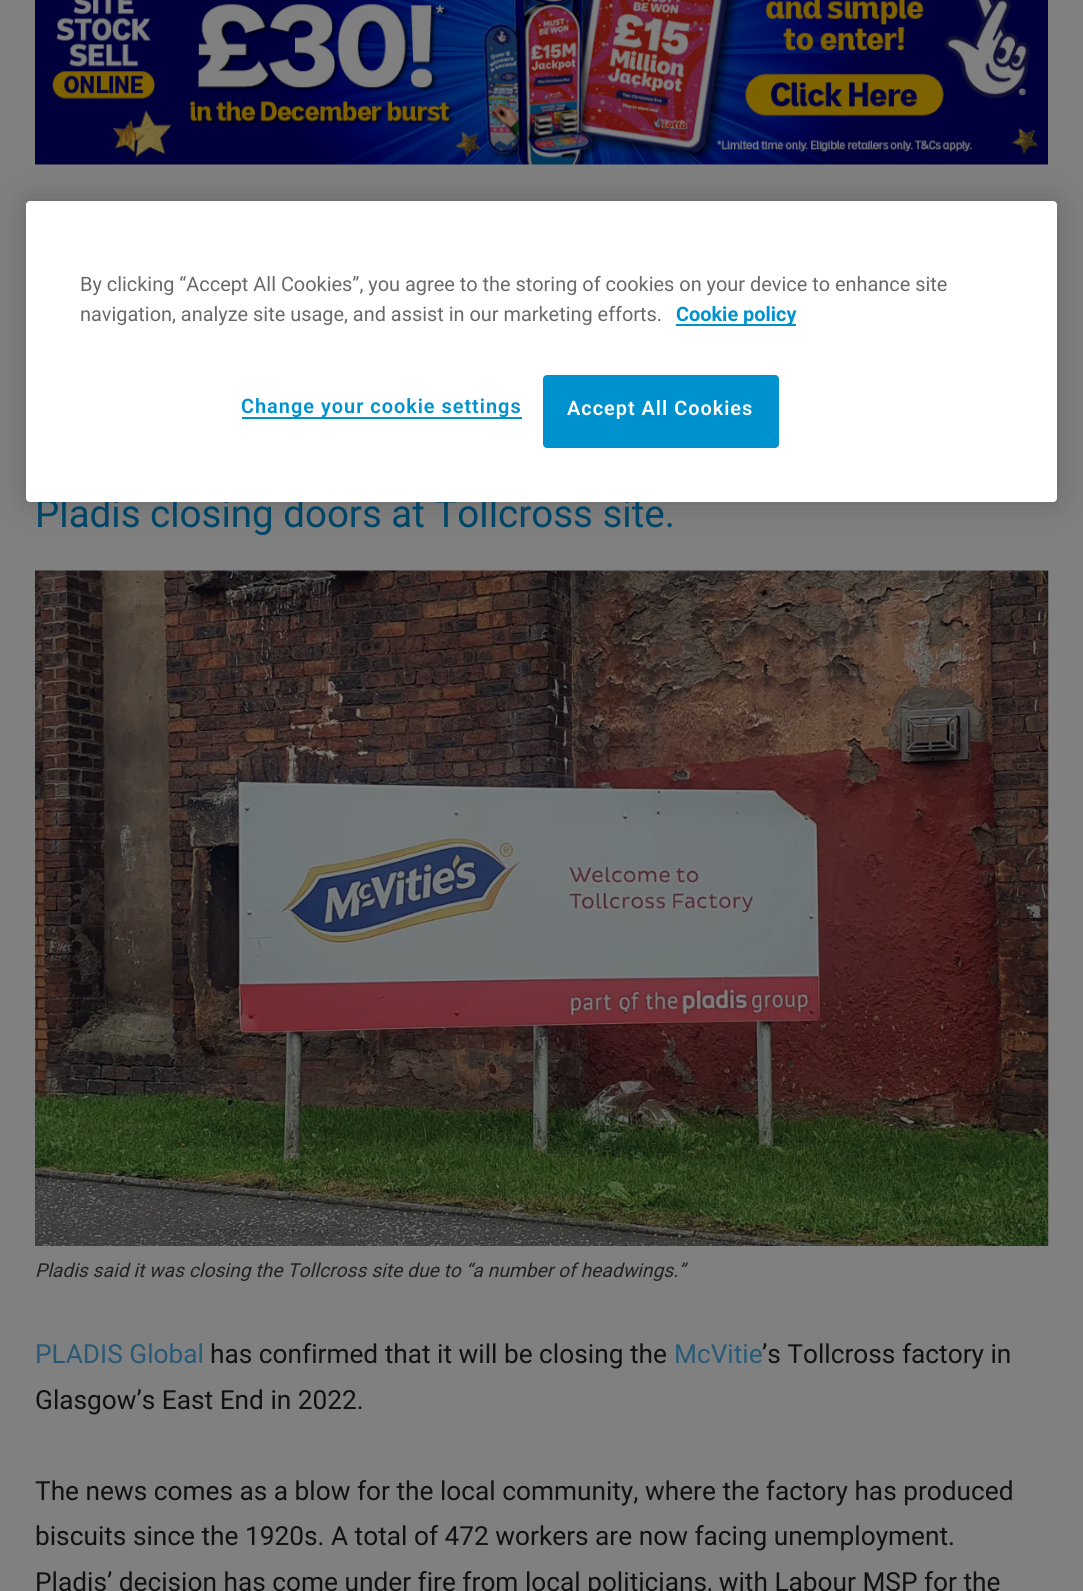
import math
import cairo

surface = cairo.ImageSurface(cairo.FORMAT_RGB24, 1083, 1591)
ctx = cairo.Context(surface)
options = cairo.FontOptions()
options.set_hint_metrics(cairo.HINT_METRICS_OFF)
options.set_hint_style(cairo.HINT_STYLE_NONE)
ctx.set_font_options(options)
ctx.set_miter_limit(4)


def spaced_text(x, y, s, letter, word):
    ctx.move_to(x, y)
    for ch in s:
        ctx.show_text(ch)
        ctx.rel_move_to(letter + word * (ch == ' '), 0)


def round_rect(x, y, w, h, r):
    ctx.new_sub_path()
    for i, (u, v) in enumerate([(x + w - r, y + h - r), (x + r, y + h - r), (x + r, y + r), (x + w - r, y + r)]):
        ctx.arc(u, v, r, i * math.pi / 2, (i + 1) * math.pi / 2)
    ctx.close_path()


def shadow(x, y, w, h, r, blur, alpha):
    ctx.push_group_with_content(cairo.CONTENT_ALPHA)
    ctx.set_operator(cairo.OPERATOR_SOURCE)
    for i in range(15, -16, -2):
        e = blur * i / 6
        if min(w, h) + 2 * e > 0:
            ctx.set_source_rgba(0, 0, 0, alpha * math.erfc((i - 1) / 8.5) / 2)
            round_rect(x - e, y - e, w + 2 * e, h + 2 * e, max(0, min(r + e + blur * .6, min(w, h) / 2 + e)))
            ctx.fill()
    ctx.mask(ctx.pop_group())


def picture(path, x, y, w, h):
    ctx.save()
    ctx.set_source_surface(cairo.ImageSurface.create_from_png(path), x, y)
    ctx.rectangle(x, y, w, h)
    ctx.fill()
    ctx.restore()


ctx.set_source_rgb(0.502, 0.502, 0.502)
ctx.paint()
picture("img1.png", 35, 0, 1013, 165)
ctx.set_source_rgb(0, 0, 0)
shadow(26, 201, 1031, 301, 4, 16, 0.2)
ctx.select_font_face("Roboto")
ctx.set_font_size(38.5)
ctx.set_source_rgb(0, 0.271, 0.4)
ctx.move_to(35, 527)
ctx.show_text("Pladis closing doors at Tollcross site.")
ctx.set_source_rgb(1, 1, 1)
round_rect(26, 201, 1031, 301, 4)
ctx.fill()
ctx.set_font_size(19.9)
ctx.set_source_rgb(0.412, 0.412, 0.412)
ctx.move_to(80, 291)
ctx.show_text("By clicking “Accept All Cookies”, you agree to the storing of cookies on your device to enhance site")
ctx.move_to(80, 321)
ctx.show_text("navigation, analyze site usage, and assist in our marketing efforts.")
ctx.set_source_rgb(0, 0.573, 0.812)
ctx.rectangle(676, 324, 120, 2)
ctx.fill()
ctx.select_font_face("Roboto", cairo.FONT_SLANT_NORMAL, cairo.FONT_WEIGHT_BOLD)
ctx.move_to(676, 321)
ctx.show_text("Cookie policy")
ctx.rectangle(242, 417, 280, 2)
ctx.fill()
ctx.select_font_face("Roboto SemiBold")
spaced_text(241, 413, "Change your cookie settings", 1, 0)
round_rect(544, 376, 234, 71, 3)
ctx.fill_preserve()
ctx.stroke()
ctx.set_source_rgb(1, 1, 1)
spaced_text(567, 415, "Accept All Cookies", 1, 0)
picture("img2.png", 35, 570, 1014, 676)
ctx.select_font_face("Roboto", cairo.FONT_SLANT_ITALIC)
ctx.set_font_size(19.25)
ctx.set_source_rgb(0.133, 0.133, 0.133)
ctx.move_to(35, 1277)
ctx.show_text("Pladis said it was closing the Tollcross site due to “a number of headwings.”")
ctx.select_font_face("Roboto")
ctx.set_font_size(26.25)
ctx.set_source_rgb(0.153, 0.349, 0.463)
ctx.move_to(35, 1363)
ctx.show_text("PLADIS Global")
ctx.set_source_rgb(0.067, 0.067, 0.067)
ctx.move_to(210, 1363)
ctx.show_text("has confirmed that it will be closing the")
ctx.set_source_rgb(0.153, 0.349, 0.463)
ctx.move_to(674, 1363)
ctx.show_text("McVitie")
ctx.set_source_rgb(0.067, 0.067, 0.067)
ctx.move_to(762, 1363)
ctx.show_text("’s Tollcross factory in")
ctx.move_to(35, 1409)
ctx.show_text("Glasgow’s East End in 2022.")
ctx.move_to(35, 1500)
ctx.show_text("The news comes as a blow for the local community, where the factory has produced")
ctx.move_to(35, 1545)
ctx.show_text("biscuits since the 1920s. A total of 472 workers are now facing unemployment.")
ctx.move_to(35, 1591)
ctx.show_text("Pladis’ decision has come under fire from local politicians, with Labour MSP for the")
surface.write_to_png("page.png")
